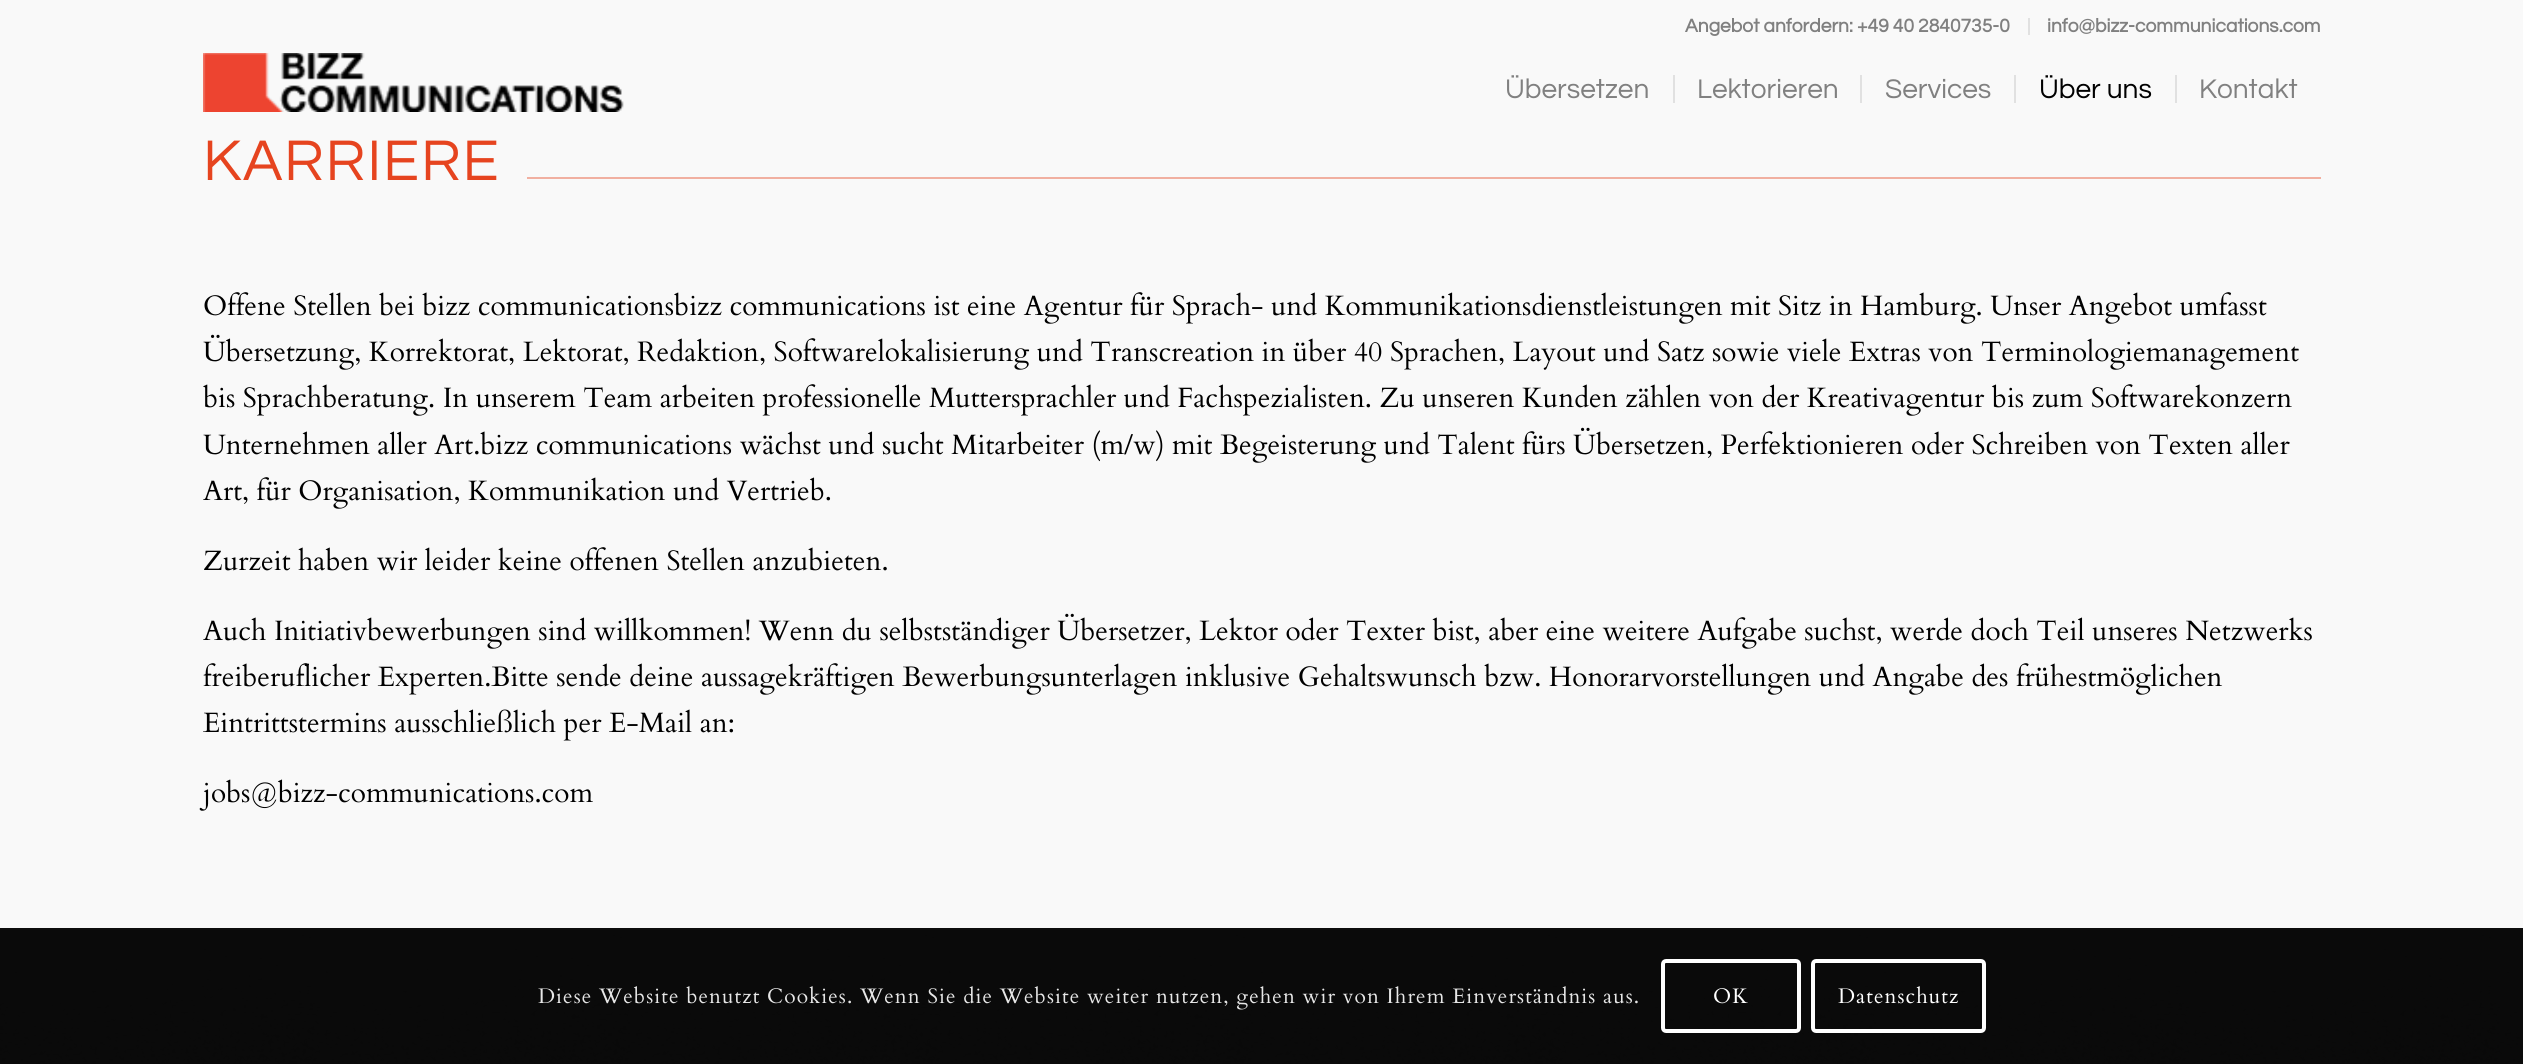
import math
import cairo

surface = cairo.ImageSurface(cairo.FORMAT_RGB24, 2523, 1064)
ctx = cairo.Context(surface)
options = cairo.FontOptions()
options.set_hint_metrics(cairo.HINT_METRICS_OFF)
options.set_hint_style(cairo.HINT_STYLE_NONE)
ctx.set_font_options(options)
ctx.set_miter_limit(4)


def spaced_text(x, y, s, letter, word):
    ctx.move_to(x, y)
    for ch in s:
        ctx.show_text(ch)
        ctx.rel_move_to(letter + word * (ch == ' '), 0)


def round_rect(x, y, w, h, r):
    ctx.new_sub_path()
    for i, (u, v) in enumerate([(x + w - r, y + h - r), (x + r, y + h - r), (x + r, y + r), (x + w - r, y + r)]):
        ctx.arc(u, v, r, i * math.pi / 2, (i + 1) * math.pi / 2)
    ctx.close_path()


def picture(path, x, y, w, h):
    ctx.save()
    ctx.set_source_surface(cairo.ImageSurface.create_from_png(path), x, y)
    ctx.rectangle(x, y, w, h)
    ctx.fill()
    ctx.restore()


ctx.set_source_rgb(0.973, 0.973, 0.973)
ctx.paint()
ctx.set_source_rgb(0.882, 0.882, 0.882)
ctx.rectangle(2028, 18, 2, 17)
ctx.fill()
ctx.select_font_face("Questrial", cairo.FONT_SLANT_NORMAL, cairo.FONT_WEIGHT_BOLD)
ctx.set_font_size(19.25)
ctx.set_source_rgb(0.502, 0.502, 0.502)
ctx.move_to(1685, 32)
ctx.show_text("Angebot anfordern: +49 40 2840735-0")
ctx.move_to(2047, 32)
ctx.show_text("info@bizz-communications.com")
picture("img1.png", 203, 53, 421, 59)
ctx.select_font_face("Questrial")
ctx.set_font_size(28)
ctx.move_to(1505, 98)
ctx.show_text("Übersetzen")
ctx.move_to(1697, 98)
ctx.show_text("Lektorieren")
ctx.set_source_rgb(0.882, 0.882, 0.882)
ctx.rectangle(1673, 75, 2, 28)
ctx.fill()
ctx.set_source_rgb(0.502, 0.502, 0.502)
ctx.move_to(1885, 98)
ctx.show_text("Services")
ctx.set_source_rgb(0.882, 0.882, 0.882)
ctx.rectangle(1860, 75, 2, 28)
ctx.fill()
ctx.set_source_rgb(0, 0, 0)
ctx.move_to(2039, 98)
ctx.show_text("Über uns")
ctx.set_source_rgb(0.882, 0.882, 0.882)
ctx.rectangle(2014, 75, 2, 28)
ctx.fill()
ctx.set_source_rgb(0.502, 0.502, 0.502)
ctx.move_to(2199, 98)
ctx.show_text("Kontakt")
ctx.set_source_rgb(0.882, 0.882, 0.882)
ctx.rectangle(2175, 75, 2, 28)
ctx.fill()
ctx.set_font_size(59.5)
ctx.set_source_rgb(0.902, 0.267, 0.122)
spaced_text(203, 180, "KARRIERE", 1.75, 0)
ctx.set_source_rgb(0.945, 0.69, 0.631)
ctx.rectangle(527, 177, 1794, 2)
ctx.fill()
ctx.select_font_face("Cardo")
ctx.set_font_size(28)
ctx.set_source_rgb(0, 0, 0)
ctx.move_to(203, 315)
ctx.show_text("Offene Stellen bei bizz communicationsbizz communications ist eine Agentur für Sprach- und Kommunikationsdienstleistungen mit Sitz in Hamburg. Unser Angebot umfasst")
ctx.move_to(203, 361)
ctx.show_text("Übersetzung, Korrektorat, Lektorat, Redaktion, Softwarelokalisierung und Transcreation in über 40 Sprachen, Layout und Satz sowie viele Extras von Terminologiemanagement")
ctx.move_to(203, 407)
ctx.show_text("bis Sprachberatung. In unserem Team arbeiten professionelle Muttersprachler und Fachspezialisten. Zu unseren Kunden zählen von der Kreativagentur bis zum Softwarekonzern")
ctx.move_to(203, 454)
ctx.show_text("Unternehmen aller Art.bizz communications wächst und sucht Mitarbeiter (m/w) mit Begeisterung und Talent fürs Übersetzen, Perfektionieren oder Schreiben von Texten aller")
ctx.move_to(203, 500)
ctx.show_text("Art, für Organisation, Kommunikation und Vertrieb.")
ctx.move_to(203, 570)
ctx.show_text("Zurzeit haben wir leider keine offenen Stellen anzubieten.")
ctx.move_to(203, 640)
ctx.show_text("Auch Initiativbewerbungen sind willkommen! Wenn du selbstständiger Übersetzer, Lektor oder Texter bist, aber eine weitere Aufgabe suchst, werde doch Teil unseres Netzwerks")
ctx.move_to(203, 686)
ctx.show_text("freiberuflicher Experten.Bitte sende deine aussagekräftigen Bewerbungsunterlagen inklusive Gehaltswunsch bzw. Honorarvorstellungen und Angabe des frühestmöglichen")
ctx.move_to(203, 732)
ctx.show_text("Eintrittstermins ausschließlich per E-Mail an:")
ctx.move_to(203, 802)
ctx.show_text("jobs@bizz-communications.com")
ctx.set_source_rgb(0.031, 0.031, 0.031)
ctx.rectangle(0, 930, 2523, 134)
ctx.fill()
picture("img2.png", 0, 930, 2523, 134)
ctx.set_source_rgb(0.051, 0.051, 0.051)
ctx.rectangle(0, 928, 2523, 2)
ctx.fill()
ctx.set_font_size(21)
ctx.set_source_rgb(0.906, 0.906, 0.906)
spaced_text(538, 1003, "Diese Website benutzt Cookies. Wenn Sie die Website weiter nutzen, gehen wir von Ihrem Einverständnis aus.", 1.05, 0)
round_rect(1663, 961, 136, 70, 3)
ctx.set_source_rgb(1, 1, 1)
ctx.set_line_width(4)
ctx.stroke()
spaced_text(1713, 1003, "OK", 1.05, 0)
round_rect(1813, 961, 171, 70, 3)
ctx.stroke()
spaced_text(1838, 1003, "Datenschutz", 1.05, 0)
surface.write_to_png("page.png")
